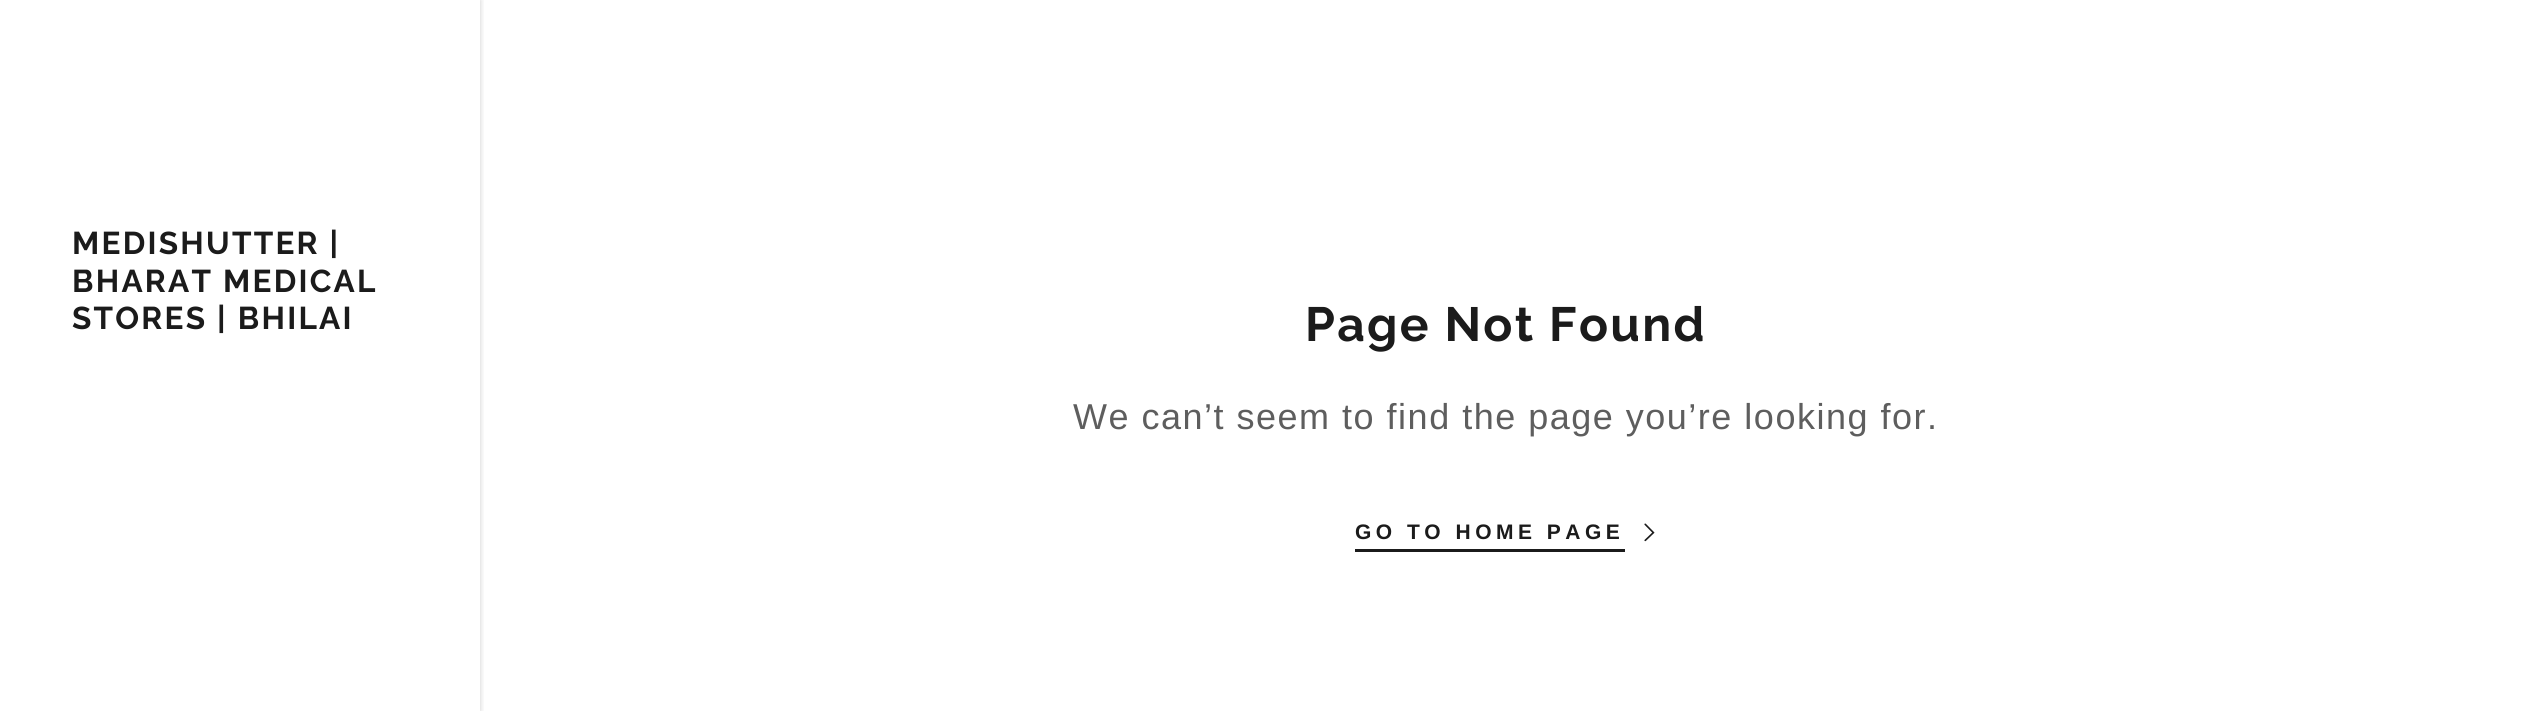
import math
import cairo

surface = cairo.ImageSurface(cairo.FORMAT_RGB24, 2531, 711)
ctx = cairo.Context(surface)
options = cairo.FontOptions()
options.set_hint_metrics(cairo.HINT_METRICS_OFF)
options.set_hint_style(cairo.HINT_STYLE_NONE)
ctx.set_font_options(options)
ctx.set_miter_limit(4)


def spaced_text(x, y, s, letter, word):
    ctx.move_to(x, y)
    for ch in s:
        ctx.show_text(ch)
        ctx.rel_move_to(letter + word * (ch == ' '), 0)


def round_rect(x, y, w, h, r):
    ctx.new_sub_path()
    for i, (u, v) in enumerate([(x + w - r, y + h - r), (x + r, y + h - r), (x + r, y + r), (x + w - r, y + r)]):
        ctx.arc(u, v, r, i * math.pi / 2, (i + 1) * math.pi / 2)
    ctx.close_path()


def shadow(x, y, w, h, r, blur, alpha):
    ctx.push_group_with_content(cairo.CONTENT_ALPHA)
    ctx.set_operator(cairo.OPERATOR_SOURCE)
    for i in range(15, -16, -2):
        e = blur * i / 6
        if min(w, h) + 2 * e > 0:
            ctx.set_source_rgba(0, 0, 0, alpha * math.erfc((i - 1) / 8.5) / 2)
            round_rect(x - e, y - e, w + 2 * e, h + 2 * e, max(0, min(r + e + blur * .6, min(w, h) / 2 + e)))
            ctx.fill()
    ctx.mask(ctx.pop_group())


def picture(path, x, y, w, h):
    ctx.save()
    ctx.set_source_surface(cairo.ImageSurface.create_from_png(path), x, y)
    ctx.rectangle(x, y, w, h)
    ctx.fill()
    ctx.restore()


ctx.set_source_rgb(1, 1, 1)
ctx.paint()
ctx.save()
ctx.rectangle(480, 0, 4, 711)
ctx.clip()
ctx.set_source_rgb(0, 0, 0)
shadow(0, 0, 480, 711, 0, 3, 0.2)
ctx.restore()
ctx.select_font_face("Raleway", cairo.FONT_SLANT_NORMAL, cairo.FONT_WEIGHT_BOLD)
ctx.set_font_size(31.5)
ctx.set_source_rgb(0.106, 0.106, 0.106)
spaced_text(72, 254, "MEDISHUTTER |", 2.25, 0)
spaced_text(72, 292, "BHARAT MEDICAL", 2.25, 0)
spaced_text(72, 329, "STORES | BHILAI", 2.25, 0)
ctx.set_font_size(48)
spaced_text(1305, 341, "Page Not Found", 2.25, 0)
ctx.select_font_face("Liberation Sans")
ctx.set_font_size(36)
ctx.set_source_rgb(0.369, 0.369, 0.369)
spaced_text(1073, 429, "We can’t seem to find the page you’re looking for.", 1.5, 0)
ctx.set_source_rgb(0.106, 0.106, 0.106)
ctx.rectangle(1355, 549, 270, 3)
ctx.fill()
ctx.select_font_face("Liberation Sans", cairo.FONT_SLANT_NORMAL, cairo.FONT_WEIGHT_BOLD)
ctx.set_font_size(21)
spaced_text(1355, 539, "GO TO HOME PAGE", 4.5, 0)
picture("img1.png", 1644, 523, 11, 19)
surface.write_to_png("page.png")
